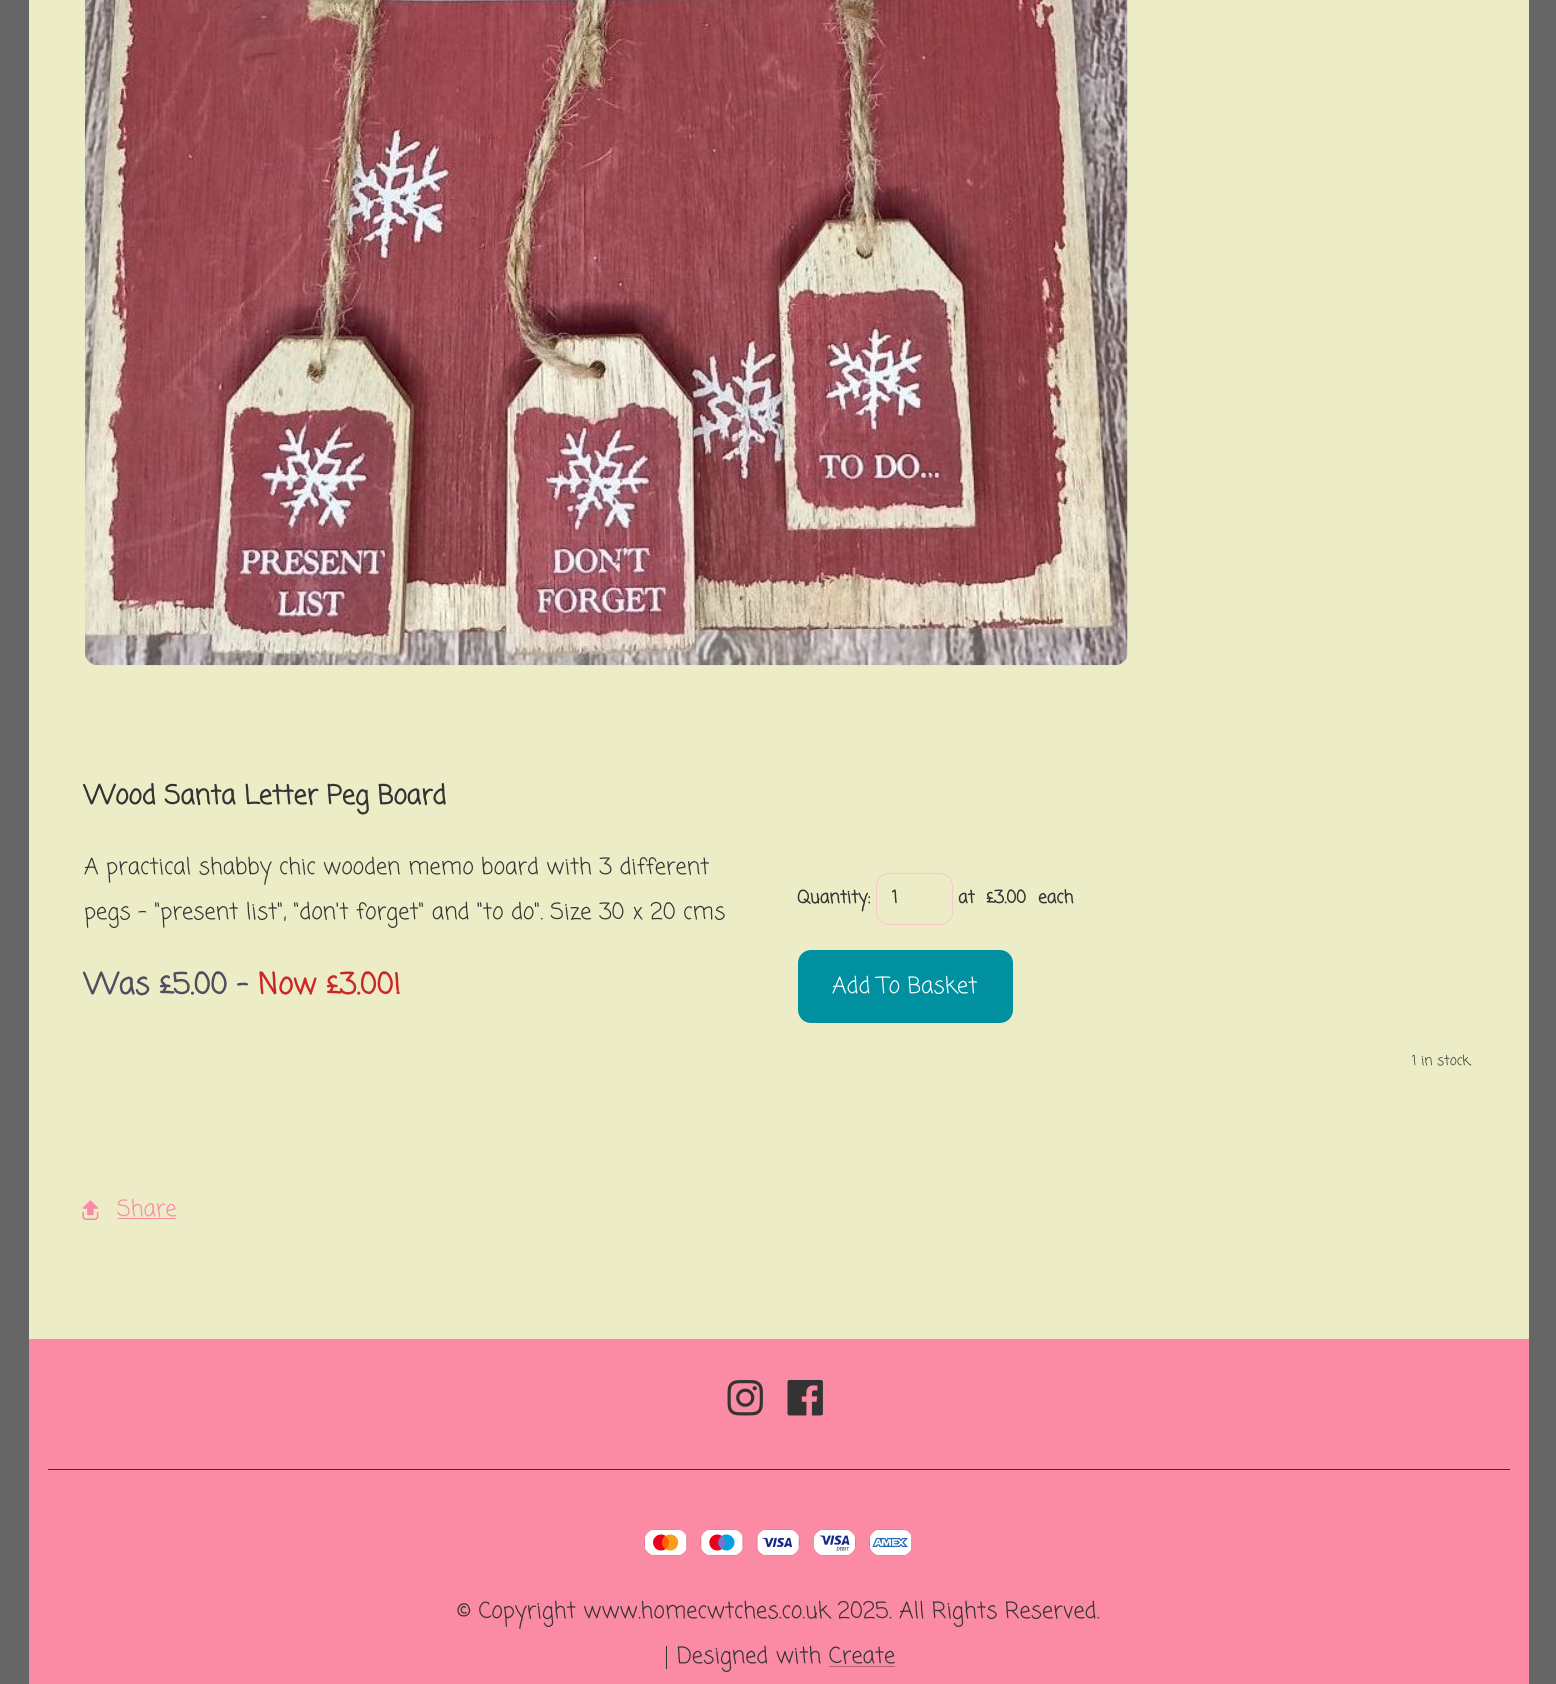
import math
import cairo

surface = cairo.ImageSurface(cairo.FORMAT_RGB24, 1556, 1684)
ctx = cairo.Context(surface)
options = cairo.FontOptions()
options.set_hint_metrics(cairo.HINT_METRICS_OFF)
options.set_hint_style(cairo.HINT_STYLE_NONE)
ctx.set_font_options(options)
ctx.set_miter_limit(4)


def round_rect(x, y, w, h, r):
    ctx.new_sub_path()
    for i, (u, v) in enumerate([(x + w - r, y + h - r), (x + r, y + h - r), (x + r, y + r), (x + w - r, y + r)]):
        ctx.arc(u, v, r, i * math.pi / 2, (i + 1) * math.pi / 2)
    ctx.close_path()


def picture(path, x, y, w, h):
    ctx.save()
    ctx.set_source_surface(cairo.ImageSurface.create_from_png(path), x, y)
    ctx.rectangle(x, y, w, h)
    ctx.fill()
    ctx.restore()


ctx.set_source_rgb(0.4, 0.4, 0.4)
ctx.paint()
ctx.set_source_rgb(0.925, 0.929, 0.78)
ctx.rectangle(29, 0, 1500, 1339)
ctx.fill()
picture("img1.png", 85, 0, 1043, 666)
ctx.select_font_face("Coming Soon", cairo.FONT_SLANT_NORMAL, cairo.FONT_WEIGHT_BOLD)
ctx.set_font_size(26.25)
ctx.set_source_rgb(0.2, 0.2, 0.2)
ctx.move_to(84, 804)
ctx.show_text("Wood Santa Letter Peg Board")
ctx.select_font_face("Coming Soon")
ctx.set_font_size(22.5)
ctx.move_to(84, 874)
ctx.show_text("A practical shabby chic wooden memo board with 3 different")
ctx.move_to(84, 919)
ctx.show_text("pegs - \"present list\", \"don't forget\" and \"to do\". Size 30 x 20 cms")
ctx.select_font_face("Coming Soon", cairo.FONT_SLANT_NORMAL, cairo.FONT_WEIGHT_BOLD)
ctx.set_font_size(29.25)
ctx.set_source_rgb(0.302, 0.31, 0.373)
ctx.move_to(84, 994)
ctx.show_text("Was £5.00 -")
ctx.set_source_rgb(0.8, 0.149, 0.149)
ctx.move_to(258, 994)
ctx.show_text("Now £3.00!")
ctx.set_font_size(17.5)
ctx.set_source_rgb(0.2, 0.2, 0.2)
ctx.move_to(797, 903)
ctx.show_text("Quantity:")
round_rect(876.5, 873.5, 76, 51, 12.5)
ctx.set_source_rgb(0.992, 0.773, 0.824)
ctx.set_line_width(1)
ctx.stroke()
ctx.set_source_rgb(0.2, 0.2, 0.2)
ctx.move_to(892, 903)
ctx.show_text("1")
ctx.move_to(958, 903)
ctx.show_text("at")
ctx.move_to(986, 903)
ctx.show_text("£3.00")
ctx.move_to(1038, 903)
ctx.show_text("each")
ctx.set_source_rgb(0, 0.565, 0.627)
round_rect(799.5, 951.5, 212, 70, 11.5)
ctx.fill_preserve()
ctx.set_line_width(3)
ctx.stroke()
ctx.select_font_face("Coming Soon")
ctx.set_font_size(22.5)
ctx.set_source_rgb(1, 1, 1)
ctx.move_to(832, 993)
ctx.show_text("Add To Basket")
ctx.set_font_size(13.75)
ctx.set_source_rgb(0.2, 0.2, 0.2)
ctx.move_to(1412, 1065)
ctx.show_text("1 in stock.")
picture("img2.png", 82, 1200, 17, 21)
ctx.set_font_size(22.5)
ctx.set_source_rgb(0.984, 0.541, 0.643)
ctx.move_to(117, 1216)
ctx.show_text("Share")
ctx.rectangle(118, 1218, 58, 1)
ctx.fill()
ctx.rectangle(29, 1339, 1500, 345)
ctx.fill()
picture("img3.png", 727, 1380, 36, 36)
picture("img4.png", 787, 1380, 36, 36)
ctx.set_source_rgb(0.2, 0.2, 0.2)
ctx.rectangle(48, 1469, 1462, 1)
ctx.fill()
picture("img5.png", 644, 1529, 44, 27)
picture("img6.png", 700, 1529, 44, 27)
picture("img7.png", 756, 1529, 44, 27)
picture("img8.png", 813, 1529, 43, 27)
picture("img9.png", 869, 1529, 44, 27)
ctx.move_to(457, 1618)
ctx.show_text("© Copyright www.homecwtches.co.uk 2025. All Rights Reserved.")
ctx.rectangle(666, 1646, 1, 23)
ctx.fill()
ctx.move_to(677, 1663)
ctx.show_text("Designed with Create")
ctx.set_source_rgb(0.671, 0.404, 0.467)
ctx.rectangle(829, 1666, 66, 1)
ctx.fill()
surface.write_to_png("page.png")
